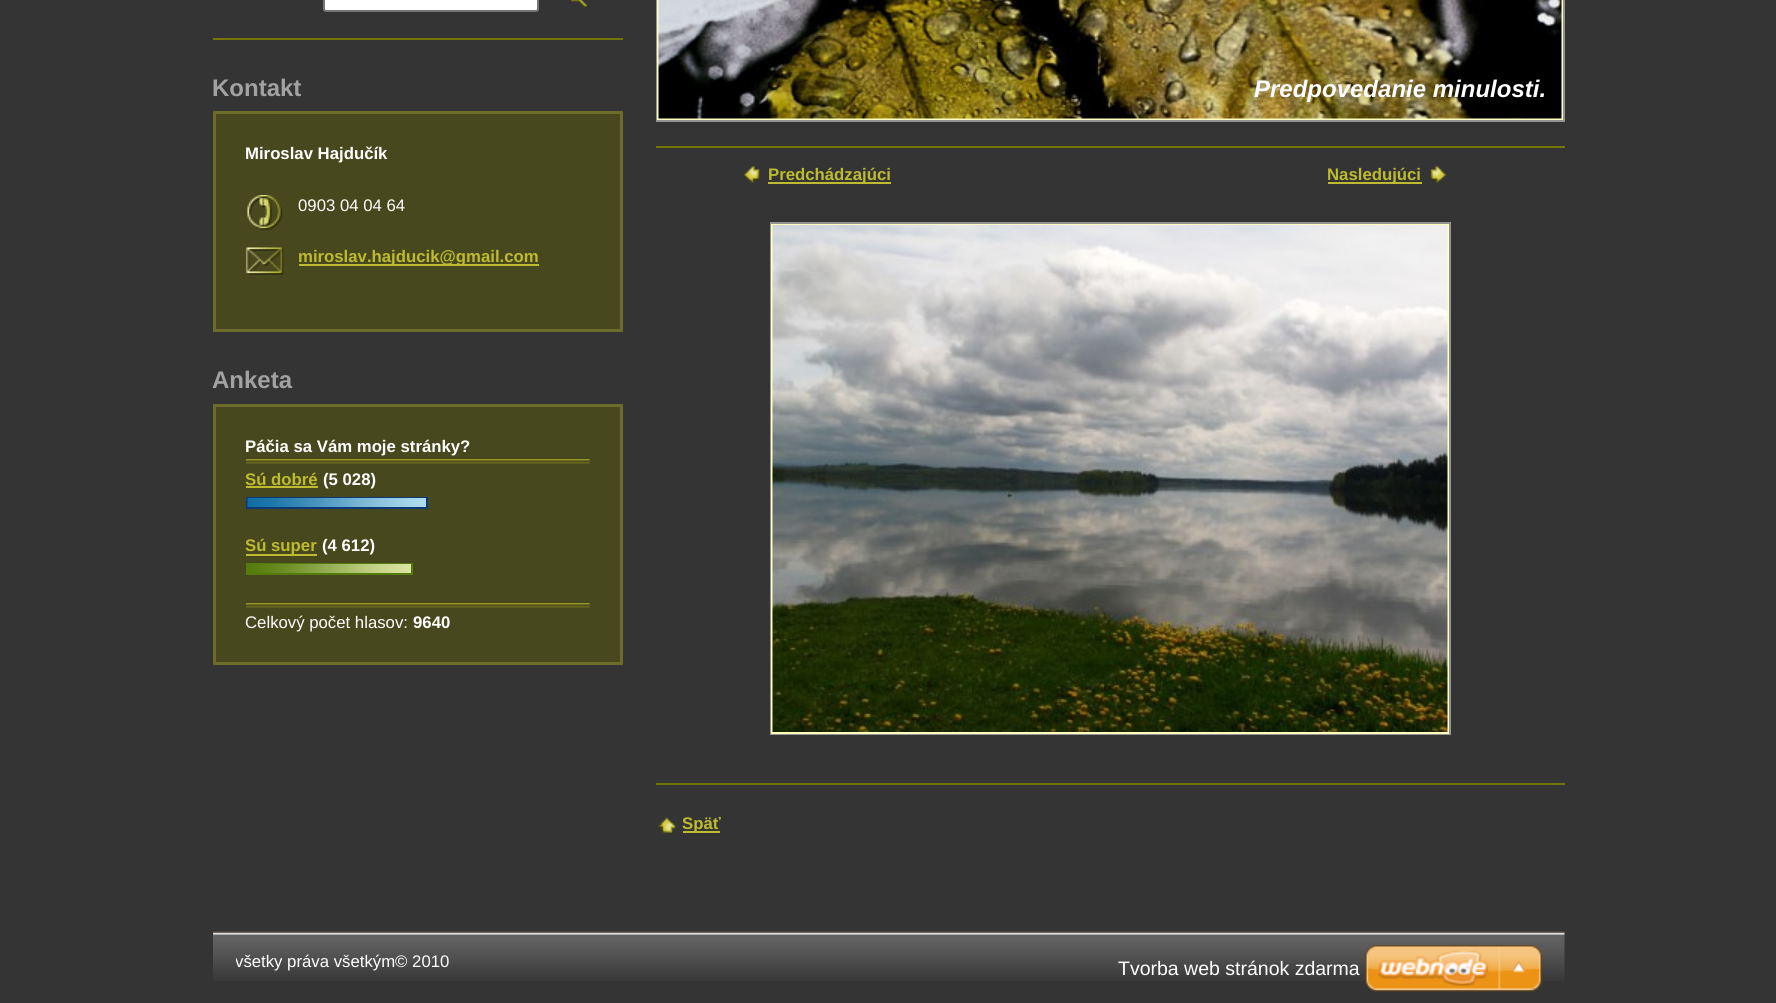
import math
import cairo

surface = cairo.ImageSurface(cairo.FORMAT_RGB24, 1776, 1003)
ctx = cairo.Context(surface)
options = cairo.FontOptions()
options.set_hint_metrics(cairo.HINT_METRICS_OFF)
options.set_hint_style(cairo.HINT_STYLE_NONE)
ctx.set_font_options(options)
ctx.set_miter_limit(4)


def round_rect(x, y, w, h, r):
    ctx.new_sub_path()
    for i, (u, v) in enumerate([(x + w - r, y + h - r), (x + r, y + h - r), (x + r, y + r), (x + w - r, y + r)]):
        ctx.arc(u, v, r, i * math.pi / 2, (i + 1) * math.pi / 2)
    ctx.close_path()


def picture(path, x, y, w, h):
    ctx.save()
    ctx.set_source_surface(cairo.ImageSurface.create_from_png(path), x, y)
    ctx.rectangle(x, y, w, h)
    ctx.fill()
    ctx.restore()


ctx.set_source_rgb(0.204, 0.204, 0.204)
ctx.paint()
ctx.set_source_rgb(0.451, 0.463, 0.008)
ctx.rectangle(213, 38, 410, 2)
ctx.fill()
ctx.set_source_rgb(1, 1, 1)
round_rect(324, -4, 214, 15, 2)
ctx.fill_preserve()
ctx.set_source_rgb(0.463, 0.463, 0.463)
ctx.stroke()
picture("img1.png", 570, 0, 17, 8)
ctx.select_font_face("Liberation Sans", cairo.FONT_SLANT_NORMAL, cairo.FONT_WEIGHT_BOLD)
ctx.set_font_size(24)
ctx.set_source_rgb(0.635, 0.635, 0.635)
ctx.move_to(212, 96)
ctx.show_text("Kontakt")
ctx.set_source_rgb(0.282, 0.282, 0.118)
ctx.rectangle(214.5, 112.5, 407, 218)
ctx.fill_preserve()
ctx.set_source_rgb(0.424, 0.424, 0.173)
ctx.set_line_width(3)
ctx.stroke()
ctx.set_font_size(16.75)
ctx.set_source_rgb(1, 1, 1)
ctx.move_to(245, 159)
ctx.show_text("Miroslav Hajdučík")
picture("img2.png", 247, 195, 36, 35)
ctx.select_font_face("Liberation Sans")
ctx.move_to(298, 211)
ctx.show_text("0903 04 04 64")
picture("img3.png", 246, 247, 38, 28)
ctx.set_source_rgb(0.749, 0.733, 0.184)
ctx.rectangle(299, 264, 240, 2)
ctx.fill()
ctx.select_font_face("Liberation Sans", cairo.FONT_SLANT_NORMAL, cairo.FONT_WEIGHT_BOLD)
ctx.move_to(298, 262)
ctx.show_text("miroslav.hajducik@gmail.com")
ctx.set_font_size(24)
ctx.set_source_rgb(0.635, 0.635, 0.635)
ctx.move_to(212, 388)
ctx.show_text("Anketa")
ctx.set_source_rgb(0.282, 0.282, 0.118)
ctx.rectangle(214.5, 405.5, 407, 258)
ctx.fill_preserve()
ctx.set_source_rgb(0.424, 0.424, 0.173)
ctx.stroke()
picture("img4.png", 246, 459, 344, 5)
ctx.set_font_size(16.75)
ctx.set_source_rgb(1, 1, 1)
ctx.move_to(245, 452)
ctx.show_text("Páčia sa Vám moje stránky?")
ctx.set_source_rgb(0.749, 0.733, 0.184)
ctx.move_to(245, 485)
ctx.show_text("Sú dobré")
ctx.rectangle(246, 486, 72, 2)
ctx.fill()
ctx.set_source_rgb(1, 1, 1)
ctx.move_to(323, 485)
ctx.show_text("(5 028)")
ctx.rectangle(247, 498, 180, 10)
ctx.set_source_rgb(0.051, 0.224, 0.482)
ctx.set_line_width(2)
ctx.stroke()
picture("img5.png", 247, 498, 179, 9)
ctx.set_source_rgb(0.749, 0.733, 0.184)
ctx.rectangle(246, 554, 71, 2)
ctx.fill()
ctx.move_to(245, 551)
ctx.show_text("Sú super")
ctx.set_source_rgb(1, 1, 1)
ctx.move_to(322, 551)
ctx.show_text("(4 612)")
ctx.rectangle(247, 564, 165, 10)
ctx.set_source_rgb(0.333, 0.482, 0.051)
ctx.stroke()
picture("img6.png", 248, 564, 163, 9)
picture("img4.png", 246, 603, 344, 5)
ctx.select_font_face("Liberation Sans")
ctx.set_source_rgb(1, 1, 1)
ctx.move_to(245, 628)
ctx.show_text("Celkový počet hlasov:")
ctx.select_font_face("Liberation Sans", cairo.FONT_SLANT_NORMAL, cairo.FONT_WEIGHT_BOLD)
ctx.move_to(413, 628)
ctx.show_text("9640")
ctx.rectangle(657, -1, 907, 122)
ctx.set_source_rgb(0.576, 0.576, 0.576)
ctx.stroke()
ctx.rectangle(658, -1, 904, 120)
ctx.set_source_rgb(1, 1, 0.745)
ctx.stroke()
picture("img7.png", 658, 0, 904, 119)
ctx.select_font_face("Liberation Sans", cairo.FONT_SLANT_ITALIC, cairo.FONT_WEIGHT_BOLD)
ctx.set_font_size(24)
ctx.set_source_rgb(1, 1, 1)
ctx.move_to(1254, 97)
ctx.show_text("Predpovedanie minulosti.")
ctx.set_source_rgb(0.451, 0.463, 0.008)
ctx.rectangle(656, 146, 909, 2)
ctx.fill()
ctx.rectangle(656, 783, 909, 2)
ctx.fill()
picture("img8.png", 743, 166, 17, 17)
ctx.set_source_rgb(0.749, 0.733, 0.184)
ctx.rectangle(768, 182, 123, 2)
ctx.fill()
ctx.select_font_face("Liberation Sans", cairo.FONT_SLANT_NORMAL, cairo.FONT_WEIGHT_BOLD)
ctx.set_font_size(16.75)
ctx.move_to(768, 180)
ctx.show_text("Predchádzajúci")
ctx.rectangle(1328, 182, 94, 2)
ctx.fill()
ctx.move_to(1327, 180)
ctx.show_text("Nasledujúci")
picture("img9.png", 1430, 166, 17, 17)
ctx.rectangle(771, 223, 679, 511)
ctx.set_source_rgb(0.576, 0.576, 0.576)
ctx.stroke()
ctx.rectangle(772, 225, 676, 508)
ctx.set_source_rgb(1, 1, 0.745)
ctx.stroke()
picture("img10.png", 772, 225, 676, 507)
picture("img11.png", 658, 817, 18, 16)
ctx.set_source_rgb(0.749, 0.733, 0.184)
ctx.rectangle(683, 831, 37, 2)
ctx.fill()
ctx.move_to(682, 829)
ctx.show_text("Späť")
picture("img12.png", 213, 931, 1352, 50)
ctx.save()
ctx.rectangle(236, 932, 840, 60)
ctx.clip()
ctx.select_font_face("Liberation Sans")
ctx.set_source_rgb(1, 1, 1)
ctx.move_to(235, 967)
ctx.show_text("všetky práva všetkým© 2010")
ctx.restore()
ctx.select_font_face("Liberation Sans")
ctx.set_font_size(19.5)
ctx.set_source_rgb(1, 1, 1)
ctx.move_to(1118, 975)
ctx.show_text("Tvorba web stránok zdarma")
picture("img13.png", 1365, 945, 177, 47)
surface.write_to_png("page.png")
